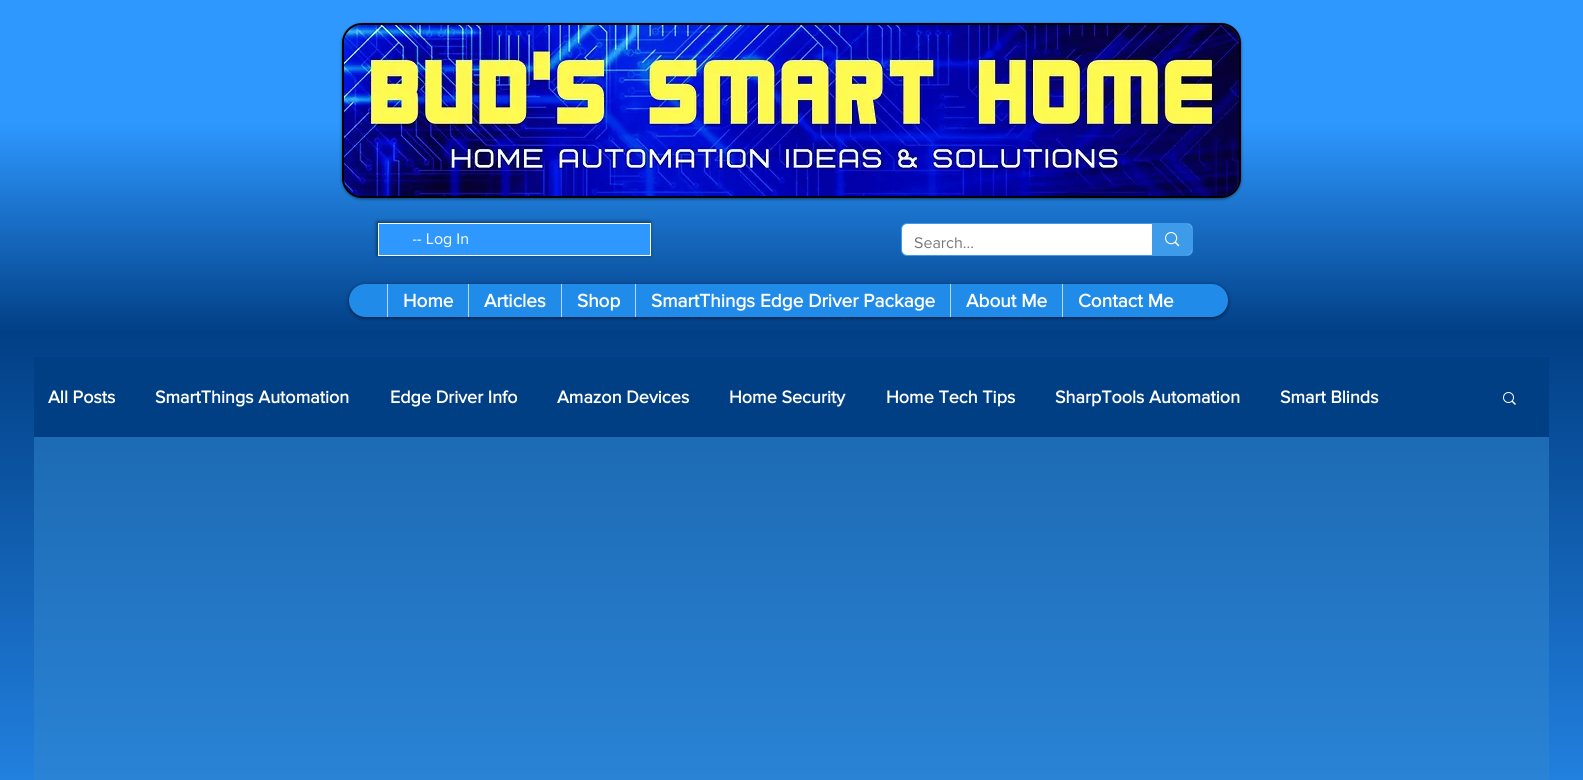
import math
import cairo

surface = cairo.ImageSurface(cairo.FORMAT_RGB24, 1583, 780)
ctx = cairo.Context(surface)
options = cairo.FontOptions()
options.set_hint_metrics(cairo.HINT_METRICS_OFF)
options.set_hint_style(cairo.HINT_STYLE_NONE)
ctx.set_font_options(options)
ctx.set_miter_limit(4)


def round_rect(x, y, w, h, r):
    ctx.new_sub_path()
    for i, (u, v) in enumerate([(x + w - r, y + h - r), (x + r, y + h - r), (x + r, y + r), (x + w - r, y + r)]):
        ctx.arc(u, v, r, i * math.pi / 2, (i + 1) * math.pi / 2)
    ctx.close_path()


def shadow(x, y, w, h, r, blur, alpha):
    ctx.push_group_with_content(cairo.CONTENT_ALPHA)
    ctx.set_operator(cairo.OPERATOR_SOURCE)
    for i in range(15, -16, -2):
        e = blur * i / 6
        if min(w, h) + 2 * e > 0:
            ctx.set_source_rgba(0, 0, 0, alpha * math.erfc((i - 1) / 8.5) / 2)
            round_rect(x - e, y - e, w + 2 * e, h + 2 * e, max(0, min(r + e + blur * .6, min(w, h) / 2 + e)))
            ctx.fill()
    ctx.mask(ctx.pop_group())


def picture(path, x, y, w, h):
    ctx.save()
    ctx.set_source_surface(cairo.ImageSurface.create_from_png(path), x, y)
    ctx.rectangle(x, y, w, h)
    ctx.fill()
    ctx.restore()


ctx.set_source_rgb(1, 1, 1)
ctx.paint()
gradient = cairo.LinearGradient(792, 0, 792, 332)
gradient.add_color_stop_rgba(0.37, 0.18, 0.596, 1, 1)
gradient.add_color_stop_rgba(1, 0.004, 0.247, 0.522, 1)
ctx.set_source(gradient)
ctx.rectangle(0, 0, 1583, 332)
ctx.fill()
ctx.set_source_rgb(0, 0, 0)
shadow(342, 24, 899, 175, 20, 1.5, 0.5)
round_rect(343, 24, 897, 173, 19)
ctx.set_source_rgb(0, 0, 0)
ctx.stroke()
picture("img1.png", 344, 25, 895, 171)
ctx.set_source_rgb(0, 0, 0)
shadow(377, 222, 273, 33, 0, 2, 0.6)
ctx.set_source_rgb(0.18, 0.596, 1)
ctx.rectangle(378.5, 223.5, 272, 32)
ctx.fill_preserve()
ctx.set_source_rgb(1, 1, 1)
ctx.set_line_width(1)
ctx.stroke()
ctx.select_font_face("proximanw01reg")
ctx.set_font_size(16)
ctx.move_to(412, 244)
ctx.show_text("-- Log In")
round_rect(901.5, 223.5, 291, 32, 5.5)
ctx.set_source_rgb(0.239, 0.608, 0.914)
ctx.stroke()
ctx.set_source_rgb(1, 1, 1)
round_rect(902, 224, 290, 31, 5)
ctx.fill()
ctx.set_source_rgb(0.471, 0.471, 0.471)
ctx.move_to(914, 248)
ctx.show_text("Search...")
ctx.set_source_rgb(0.239, 0.608, 0.914)
ctx.new_path()
ctx.move_to(1152, 224)
ctx.line_to(1187, 224)
ctx.curve_to(1190, 224, 1192, 226, 1192, 229)
ctx.line_to(1192, 250)
ctx.curve_to(1192, 253, 1190, 255, 1187, 255)
ctx.line_to(1152, 255)
ctx.close_path()
ctx.fill()
picture("img2.png", 1165, 232, 15, 15)
ctx.set_source_rgb(0.18, 0.596, 1)
ctx.rectangle(412, 239, 1, 2)
ctx.fill()
ctx.set_source_rgb(0, 0, 0)
shadow(349, 285, 879, 33, 16.5, 2, 0.6)
ctx.set_source_rgb(0.125, 0.545, 0.91)
round_rect(349, 284, 879, 33, 16.5)
ctx.fill()
ctx.set_source_rgb(0.71, 0.851, 0.969)
ctx.rectangle(387, 284, 1, 33)
ctx.fill()
ctx.select_font_face("proximanw01reg", cairo.FONT_SLANT_NORMAL, cairo.FONT_WEIGHT_BOLD)
ctx.set_font_size(19)
ctx.set_source_rgb(1, 1, 1)
ctx.move_to(403, 307)
ctx.show_text("Home")
ctx.set_source_rgb(0.71, 0.851, 0.969)
ctx.rectangle(468, 284, 1, 33)
ctx.fill()
ctx.set_source_rgb(1, 1, 1)
ctx.move_to(484, 307)
ctx.show_text("Articles")
ctx.set_source_rgb(0.71, 0.851, 0.969)
ctx.rectangle(561, 284, 1, 33)
ctx.fill()
ctx.set_source_rgb(1, 1, 1)
ctx.move_to(577, 307)
ctx.show_text("Shop")
ctx.set_source_rgb(0.71, 0.851, 0.969)
ctx.rectangle(635, 284, 1, 33)
ctx.fill()
ctx.set_source_rgb(1, 1, 1)
ctx.move_to(651, 307)
ctx.show_text("SmartThings Edge Driver Package")
ctx.set_source_rgb(0.71, 0.851, 0.969)
ctx.rectangle(950, 284, 1, 33)
ctx.fill()
ctx.set_source_rgb(1, 1, 1)
ctx.move_to(966, 307)
ctx.show_text("About Me")
ctx.set_source_rgb(0.71, 0.851, 0.969)
ctx.rectangle(1062, 284, 1, 33)
ctx.fill()
ctx.set_source_rgb(1, 1, 1)
ctx.move_to(1078, 307)
ctx.show_text("Contact Me")
gradient = cairo.LinearGradient(792, 332, 792, 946)
gradient.add_color_stop_rgba(0, 0.004, 0.247, 0.522, 1)
gradient.add_color_stop_rgba(1, 0.18, 0.596, 1, 1)
ctx.set_source(gradient)
ctx.rectangle(0, 332, 1583, 448)
ctx.fill()
gradient = cairo.LinearGradient(792, 332, 792, 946)
gradient.add_color_stop_rgba(0, 0.098, 0.388, 0.663, 1)
gradient.add_color_stop_rgba(1, 0.188, 0.561, 0.902, 1)
ctx.set_source(gradient)
ctx.rectangle(34, 437, 1515, 343)
ctx.fill()
ctx.set_source_rgb(0.004, 0.247, 0.522)
ctx.rectangle(34, 357, 1515, 80)
ctx.fill()
ctx.set_font_size(18)
ctx.set_source_rgb(1, 1, 1)
ctx.move_to(48, 403)
ctx.show_text("All Posts")
ctx.move_to(155, 403)
ctx.show_text("SmartThings Automation")
ctx.move_to(390, 403)
ctx.show_text("Edge Driver Info")
ctx.move_to(557, 403)
ctx.show_text("Amazon Devices")
ctx.move_to(729, 403)
ctx.show_text("Home Security")
ctx.move_to(886, 403)
ctx.show_text("Home Tech Tips")
ctx.move_to(1055, 403)
ctx.show_text("SharpTools Automation")
ctx.move_to(1280, 403)
ctx.show_text("Smart Blinds")
picture("img3.png", 1503, 392, 13, 13)
surface.write_to_png("page.png")
